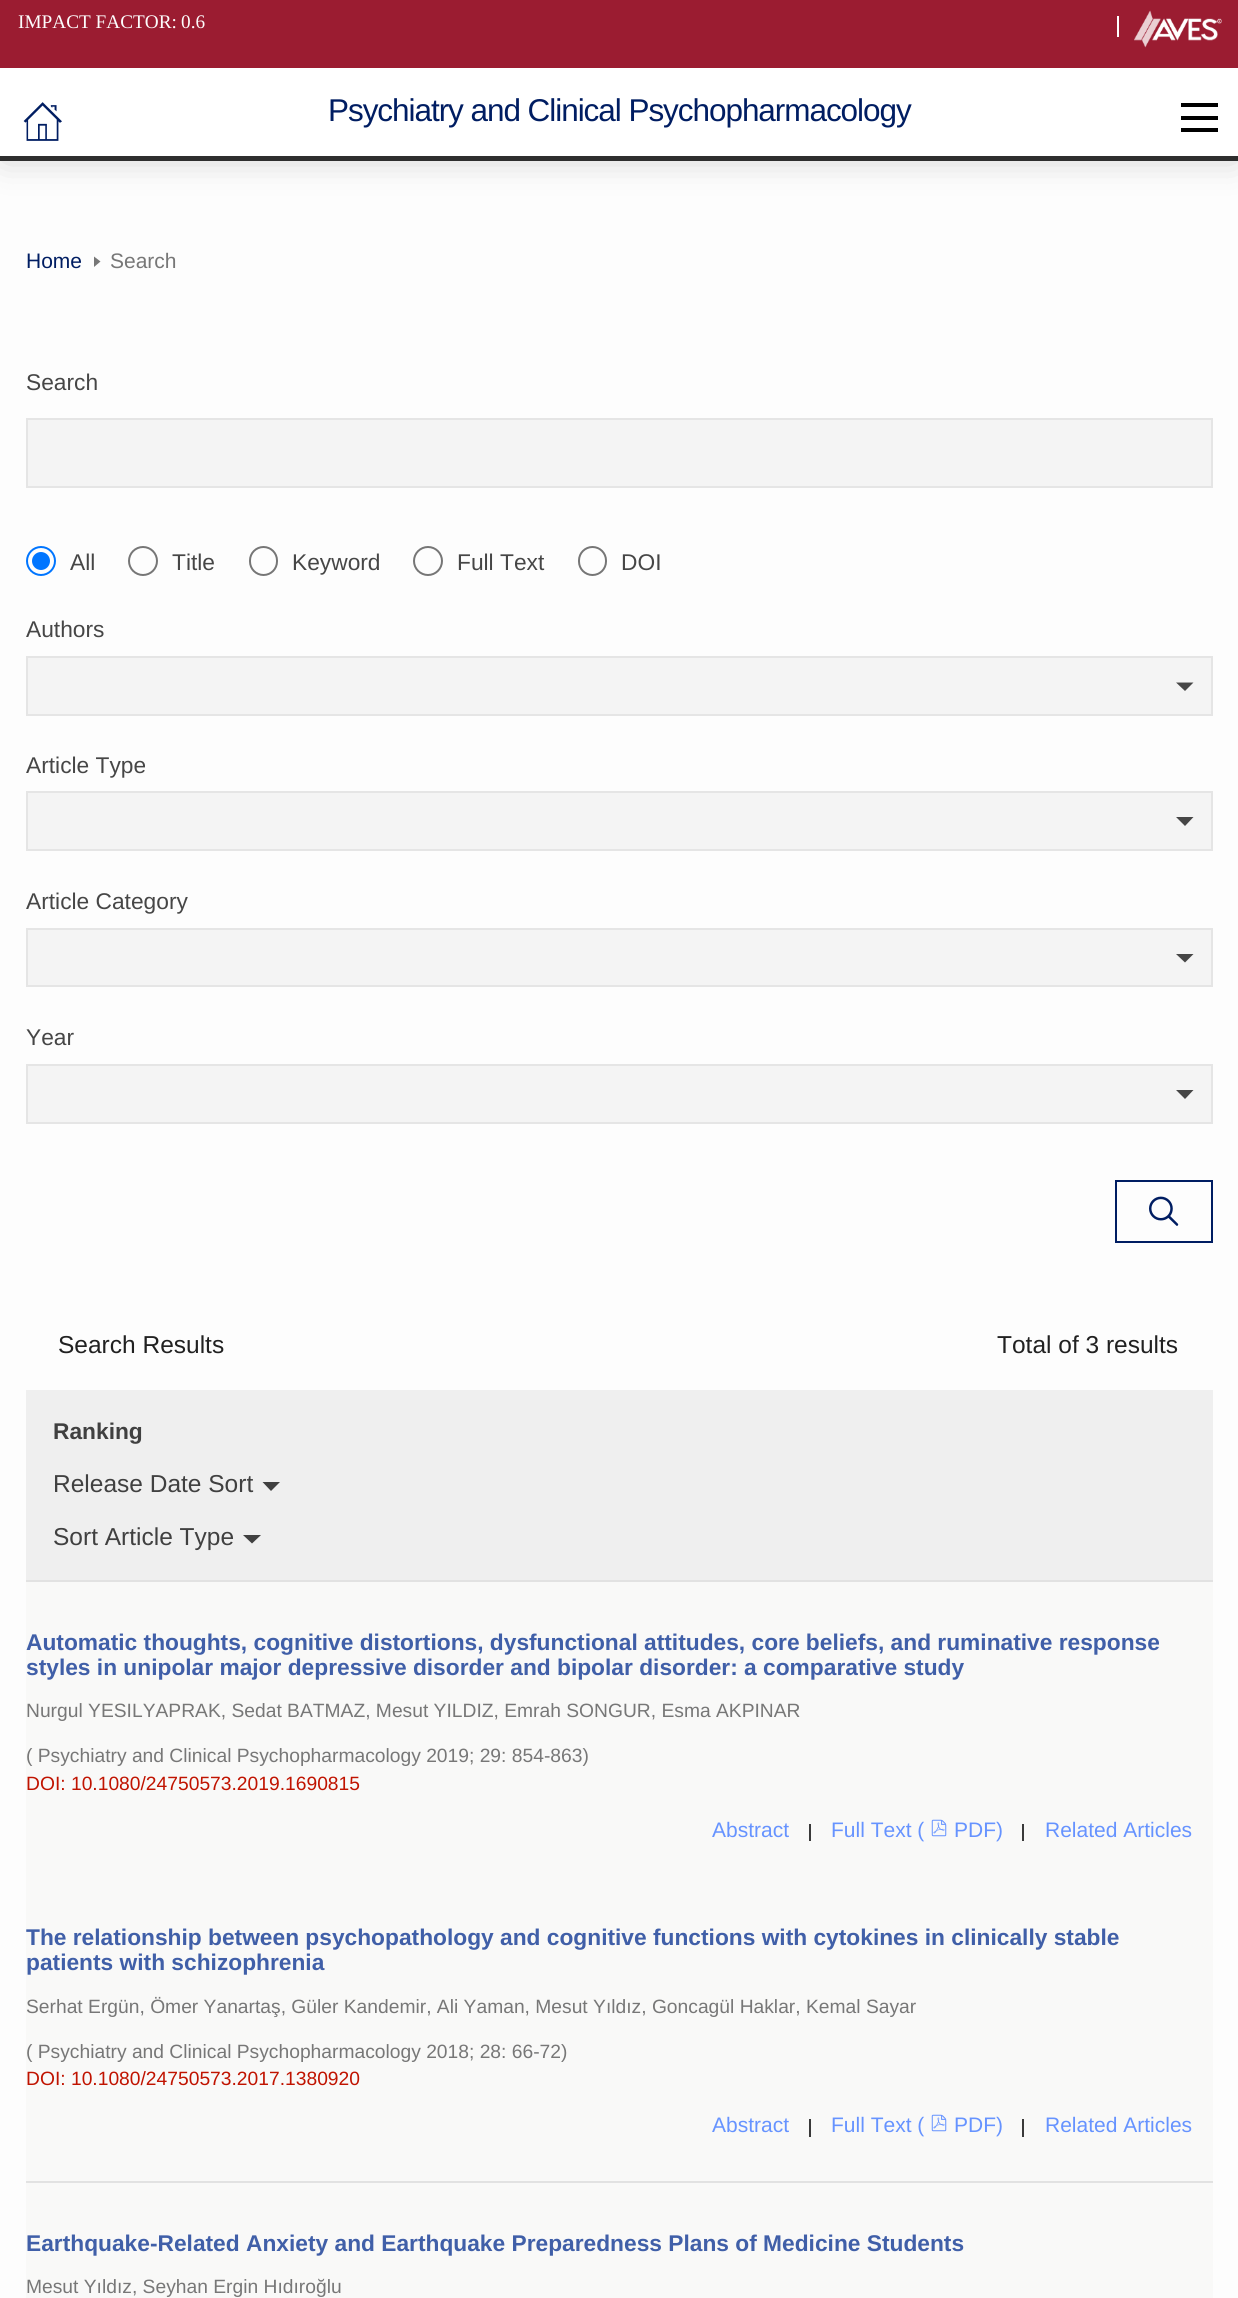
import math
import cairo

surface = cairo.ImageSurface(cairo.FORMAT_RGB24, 1238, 2298)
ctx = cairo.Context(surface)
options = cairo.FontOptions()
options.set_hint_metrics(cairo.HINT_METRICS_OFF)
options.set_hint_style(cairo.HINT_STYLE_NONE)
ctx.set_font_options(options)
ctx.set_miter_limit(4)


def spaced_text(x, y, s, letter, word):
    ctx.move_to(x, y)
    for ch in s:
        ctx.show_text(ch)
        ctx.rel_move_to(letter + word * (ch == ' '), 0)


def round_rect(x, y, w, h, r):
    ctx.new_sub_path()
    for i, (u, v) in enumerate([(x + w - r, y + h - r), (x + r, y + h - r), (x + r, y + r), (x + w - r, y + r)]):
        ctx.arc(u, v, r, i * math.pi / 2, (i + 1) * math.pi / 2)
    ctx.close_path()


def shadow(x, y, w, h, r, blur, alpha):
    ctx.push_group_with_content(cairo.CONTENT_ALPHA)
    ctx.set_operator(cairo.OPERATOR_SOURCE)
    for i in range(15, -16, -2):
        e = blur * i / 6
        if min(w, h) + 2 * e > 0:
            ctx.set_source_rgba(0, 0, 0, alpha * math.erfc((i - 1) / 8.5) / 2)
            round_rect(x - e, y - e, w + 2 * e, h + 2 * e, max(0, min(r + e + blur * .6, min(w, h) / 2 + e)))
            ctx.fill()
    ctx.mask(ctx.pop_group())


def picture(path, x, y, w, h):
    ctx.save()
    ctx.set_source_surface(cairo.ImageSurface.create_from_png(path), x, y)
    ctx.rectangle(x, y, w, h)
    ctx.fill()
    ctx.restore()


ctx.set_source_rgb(0.992, 0.992, 0.992)
ctx.paint()
ctx.set_source_rgb(0, 0, 0)
shadow(4, 4, 1232, 154, 0, 17.5, 0.2)
ctx.set_source_rgb(1, 1, 1)
ctx.rectangle(0, 68, 1238, 88)
ctx.fill()
ctx.set_source_rgb(0.18, 0.18, 0.18)
ctx.rectangle(0, 156, 1238, 5)
ctx.fill()
ctx.set_source_rgb(0.608, 0.11, 0.192)
ctx.rectangle(0, 0, 1238, 68)
ctx.fill()
ctx.select_font_face("Liberation Serif")
ctx.set_font_size(19.25)
ctx.set_source_rgb(0.992, 0.992, 0.992)
ctx.move_to(18, 28)
ctx.show_text("IMPACT FACTOR:")
ctx.move_to(181, 28)
ctx.show_text("0.6")
ctx.set_source_rgb(1, 1, 1)
ctx.rectangle(1117, 16, 2, 21)
ctx.fill()
picture("img1.png", 1134, 10, 88, 38)
ctx.select_font_face("Liberation Sans")
ctx.set_font_size(31.5)
ctx.set_source_rgb(0, 0.114, 0.384)
spaced_text(328, 121, "Psychiatry and Clinical Psychopharmacology", -1.05, 0)
picture("img2.png", 23, 102, 39, 39)
ctx.set_source_rgb(0, 0, 0)
ctx.rectangle(1181, 103, 37, 4)
ctx.fill()
ctx.rectangle(1181, 116, 37, 4)
ctx.fill()
ctx.rectangle(1181, 128, 37, 4)
ctx.fill()
ctx.set_font_size(21)
ctx.set_source_rgb(0, 0.114, 0.384)
ctx.move_to(26, 268)
ctx.show_text("Home")
ctx.set_source_rgb(0.467, 0.467, 0.467)
ctx.new_path()
ctx.move_to(94, 267)
ctx.line_to(94, 256.5)
ctx.line_to(100.5, 261.5)
ctx.close_path()
ctx.fill()
ctx.move_to(110, 268)
ctx.show_text("Search")
ctx.set_font_size(22.75)
ctx.set_source_rgb(0.275, 0.275, 0.275)
ctx.move_to(26, 390)
ctx.show_text("Search")
ctx.set_source_rgb(0.957, 0.957, 0.957)
ctx.rectangle(27, 419, 1185, 68)
ctx.fill_preserve()
ctx.set_source_rgb(0.898, 0.898, 0.898)
ctx.stroke()
ctx.arc(41, 561, 14, 0, 2 * math.pi)
ctx.set_source_rgb(0, 0.459, 1)
ctx.stroke()
ctx.arc(41, 561, 9, 0, 2 * math.pi)
ctx.fill()
ctx.set_source_rgb(0.275, 0.275, 0.275)
ctx.move_to(70, 570)
ctx.show_text("All")
ctx.new_path()
ctx.arc(143, 561, 14, 0, 2 * math.pi)
ctx.set_source_rgb(0.463, 0.463, 0.463)
ctx.stroke()
ctx.set_source_rgb(0.275, 0.275, 0.275)
ctx.move_to(172, 570)
ctx.show_text("Title")
round_rect(250, 547, 27, 28, 13.5)
ctx.set_source_rgb(0.463, 0.463, 0.463)
ctx.stroke()
ctx.set_source_rgb(0.275, 0.275, 0.275)
ctx.move_to(292, 570)
ctx.show_text("Keyword")
ctx.new_path()
ctx.arc(428, 561, 14, 0, 2 * math.pi)
ctx.set_source_rgb(0.463, 0.463, 0.463)
ctx.stroke()
ctx.set_source_rgb(0.275, 0.275, 0.275)
ctx.move_to(457, 570)
ctx.show_text("Full Text")
round_rect(579, 547, 27, 28, 13.5)
ctx.set_source_rgb(0.463, 0.463, 0.463)
ctx.stroke()
ctx.set_source_rgb(0.275, 0.275, 0.275)
ctx.move_to(621, 570)
ctx.show_text("DOI")
ctx.move_to(26, 637)
ctx.show_text("Authors")
ctx.set_source_rgb(0.957, 0.957, 0.957)
ctx.rectangle(27, 657, 1185, 58)
ctx.fill_preserve()
ctx.set_source_rgb(0.898, 0.898, 0.898)
ctx.stroke()
ctx.set_source_rgb(0.275, 0.275, 0.275)
ctx.new_path()
ctx.move_to(1176, 682.5)
ctx.line_to(1193.5, 682.5)
ctx.line_to(1185, 691)
ctx.close_path()
ctx.fill()
ctx.move_to(26, 773)
ctx.show_text("Article Type")
ctx.set_source_rgb(0.957, 0.957, 0.957)
ctx.rectangle(27, 792, 1185, 58)
ctx.fill_preserve()
ctx.set_source_rgb(0.898, 0.898, 0.898)
ctx.stroke()
ctx.set_source_rgb(0.275, 0.275, 0.275)
ctx.new_path()
ctx.move_to(1176, 817)
ctx.line_to(1193.5, 817)
ctx.line_to(1185, 826)
ctx.close_path()
ctx.fill()
ctx.move_to(26, 909)
ctx.show_text("Article Category")
ctx.set_source_rgb(0.957, 0.957, 0.957)
ctx.rectangle(27, 929, 1185, 57)
ctx.fill_preserve()
ctx.set_source_rgb(0.898, 0.898, 0.898)
ctx.stroke()
ctx.set_source_rgb(0.275, 0.275, 0.275)
ctx.new_path()
ctx.move_to(1176, 954)
ctx.line_to(1193.5, 954)
ctx.line_to(1185, 962.5)
ctx.close_path()
ctx.fill()
ctx.move_to(26, 1045)
ctx.show_text("Year")
ctx.set_source_rgb(0.957, 0.957, 0.957)
ctx.rectangle(27, 1065, 1185, 58)
ctx.fill_preserve()
ctx.set_source_rgb(0.898, 0.898, 0.898)
ctx.stroke()
ctx.set_source_rgb(0.275, 0.275, 0.275)
ctx.new_path()
ctx.move_to(1176, 1090)
ctx.line_to(1193.5, 1090)
ctx.line_to(1185, 1099)
ctx.close_path()
ctx.fill()
ctx.rectangle(1116, 1181, 96, 61)
ctx.set_source_rgb(0, 0.114, 0.384)
ctx.stroke()
picture("img3.png", 1149, 1196, 30, 30)
ctx.set_font_size(24.5)
ctx.set_source_rgb(0.129, 0.129, 0.129)
ctx.move_to(58, 1353)
ctx.show_text("Search Results")
ctx.move_to(997, 1353)
ctx.show_text("Total of 3 results")
ctx.set_source_rgb(0.937, 0.937, 0.937)
ctx.rectangle(26, 1390, 1187, 190)
ctx.fill()
ctx.select_font_face("Liberation Sans", cairo.FONT_SLANT_NORMAL, cairo.FONT_WEIGHT_BOLD)
ctx.set_font_size(22.75)
ctx.set_source_rgb(0.251, 0.251, 0.251)
ctx.move_to(53, 1439)
ctx.show_text("Ranking")
ctx.select_font_face("Liberation Sans")
ctx.set_font_size(24.5)
ctx.move_to(53, 1492)
ctx.show_text("Release Date Sort")
ctx.new_path()
ctx.move_to(262.5, 1482)
ctx.line_to(280, 1482)
ctx.line_to(271, 1491)
ctx.close_path()
ctx.fill()
ctx.move_to(53, 1545)
ctx.show_text("Sort Article Type")
ctx.new_path()
ctx.move_to(243, 1535)
ctx.line_to(261, 1535)
ctx.line_to(252, 1543.5)
ctx.close_path()
ctx.fill()
ctx.set_source_rgb(0.973, 0.973, 0.969)
ctx.rectangle(26, 1582, 1187, 599)
ctx.fill()
ctx.set_source_rgb(0.886, 0.886, 0.886)
ctx.rectangle(26, 1580, 1187, 2)
ctx.fill()
ctx.select_font_face("Liberation Sans", cairo.FONT_SLANT_NORMAL, cairo.FONT_WEIGHT_BOLD)
ctx.set_font_size(22.75)
ctx.set_source_rgb(0.251, 0.373, 0.659)
ctx.move_to(26, 1650)
ctx.show_text("Automatic thoughts, cognitive distortions, dysfunctional attitudes, core beliefs, and ruminative response")
ctx.move_to(26, 1675)
ctx.show_text("styles in unipolar major depressive disorder and bipolar disorder: a comparative study")
ctx.select_font_face("Liberation Sans")
ctx.set_font_size(19.25)
ctx.set_source_rgb(0.467, 0.467, 0.467)
ctx.move_to(26, 1717)
ctx.show_text("Nurgul YESILYAPRAK, Sedat BATMAZ, Mesut YILDIZ, Emrah SONGUR, Esma AKPINAR")
ctx.move_to(26, 1762)
ctx.show_text("( Psychiatry and Clinical Psychopharmacology 2019; 29: 854-863)")
ctx.set_source_rgb(0.753, 0.075, 0)
ctx.move_to(26, 1790)
ctx.show_text("DOI: 10.1080/24750573.2019.1690815")
ctx.set_font_size(21)
ctx.set_source_rgb(0.4, 0.576, 1)
ctx.move_to(712, 1837)
ctx.show_text("Abstract")
ctx.set_source_rgb(0.227, 0.227, 0.227)
ctx.rectangle(809, 1824, 2, 17)
ctx.fill()
ctx.set_source_rgb(0.4, 0.576, 1)
ctx.move_to(831, 1837)
ctx.show_text("Full Text (")
ctx.select_font_face("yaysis")
ctx.set_font_size(18)
ctx.move_to(930, 1837)
ctx.show_text("!")
ctx.select_font_face("Liberation Sans")
ctx.set_font_size(21)
ctx.move_to(954, 1837)
ctx.show_text("PDF)")
ctx.set_source_rgb(0.227, 0.227, 0.227)
ctx.rectangle(1022, 1824, 2, 17)
ctx.fill()
ctx.set_source_rgb(0.4, 0.576, 1)
ctx.move_to(1045, 1837)
ctx.show_text("Related Articles")
ctx.select_font_face("Liberation Sans", cairo.FONT_SLANT_NORMAL, cairo.FONT_WEIGHT_BOLD)
ctx.set_font_size(22.75)
ctx.set_source_rgb(0.251, 0.373, 0.659)
ctx.move_to(26, 1945)
ctx.show_text("The relationship between psychopathology and cognitive functions with cytokines in clinically stable")
ctx.move_to(26, 1970)
ctx.show_text("patients with schizophrenia")
ctx.select_font_face("Liberation Sans")
ctx.set_font_size(19.25)
ctx.set_source_rgb(0.467, 0.467, 0.467)
ctx.move_to(26, 2013)
ctx.show_text("Serhat Ergün, Ömer Yanartaş, Güler Kandemir, Ali Yaman, Mesut Yıldız, Goncagül Haklar, Kemal Sayar")
ctx.move_to(26, 2058)
ctx.show_text("( Psychiatry and Clinical Psychopharmacology 2018; 28: 66-72)")
ctx.set_source_rgb(0.753, 0.075, 0)
ctx.move_to(26, 2085)
ctx.show_text("DOI: 10.1080/24750573.2017.1380920")
ctx.set_font_size(21)
ctx.set_source_rgb(0.4, 0.576, 1)
ctx.move_to(712, 2132)
ctx.show_text("Abstract")
ctx.set_source_rgb(0.227, 0.227, 0.227)
ctx.rectangle(809, 2119, 2, 18)
ctx.fill()
ctx.set_source_rgb(0.4, 0.576, 1)
ctx.move_to(831, 2132)
ctx.show_text("Full Text (")
ctx.select_font_face("yaysis")
ctx.set_font_size(18)
ctx.move_to(930, 2132)
ctx.show_text("!")
ctx.select_font_face("Liberation Sans")
ctx.set_font_size(21)
ctx.move_to(954, 2132)
ctx.show_text("PDF)")
ctx.set_source_rgb(0.227, 0.227, 0.227)
ctx.rectangle(1022, 2119, 2, 18)
ctx.fill()
ctx.set_source_rgb(0.4, 0.576, 1)
ctx.move_to(1045, 2132)
ctx.show_text("Related Articles")
ctx.set_source_rgb(0.973, 0.973, 0.969)
ctx.rectangle(26, 2183, 1187, 115)
ctx.fill()
ctx.set_source_rgb(0.886, 0.886, 0.886)
ctx.rectangle(26, 2181, 1187, 2)
ctx.fill()
ctx.select_font_face("Liberation Sans", cairo.FONT_SLANT_NORMAL, cairo.FONT_WEIGHT_BOLD)
ctx.set_font_size(22.75)
ctx.set_source_rgb(0.251, 0.373, 0.659)
ctx.move_to(26, 2251)
ctx.show_text("Earthquake-Related Anxiety and Earthquake Preparedness Plans of Medicine Students")
ctx.select_font_face("Liberation Sans")
ctx.set_font_size(19.25)
ctx.set_source_rgb(0.467, 0.467, 0.467)
ctx.move_to(26, 2293)
ctx.show_text("Mesut Yıldız, Seyhan Ergin Hıdıroğlu")
surface.write_to_png("page.png")
